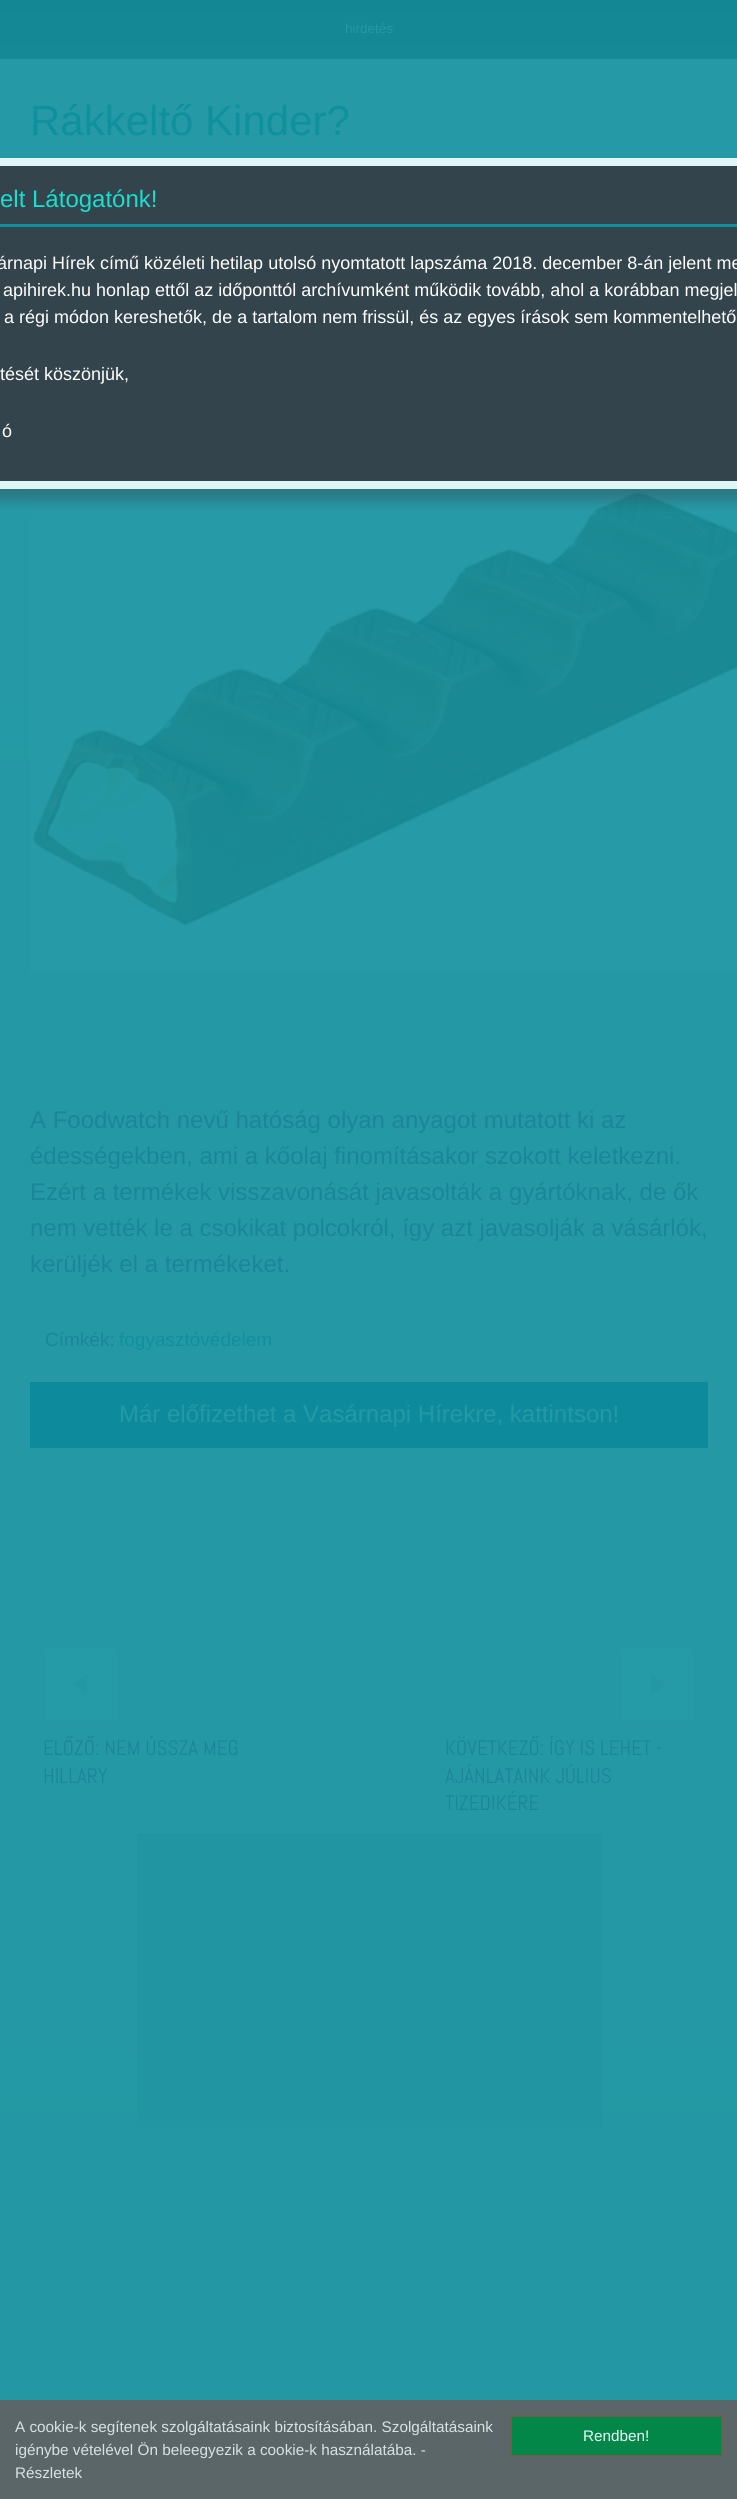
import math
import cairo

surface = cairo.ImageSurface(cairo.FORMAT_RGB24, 737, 2499)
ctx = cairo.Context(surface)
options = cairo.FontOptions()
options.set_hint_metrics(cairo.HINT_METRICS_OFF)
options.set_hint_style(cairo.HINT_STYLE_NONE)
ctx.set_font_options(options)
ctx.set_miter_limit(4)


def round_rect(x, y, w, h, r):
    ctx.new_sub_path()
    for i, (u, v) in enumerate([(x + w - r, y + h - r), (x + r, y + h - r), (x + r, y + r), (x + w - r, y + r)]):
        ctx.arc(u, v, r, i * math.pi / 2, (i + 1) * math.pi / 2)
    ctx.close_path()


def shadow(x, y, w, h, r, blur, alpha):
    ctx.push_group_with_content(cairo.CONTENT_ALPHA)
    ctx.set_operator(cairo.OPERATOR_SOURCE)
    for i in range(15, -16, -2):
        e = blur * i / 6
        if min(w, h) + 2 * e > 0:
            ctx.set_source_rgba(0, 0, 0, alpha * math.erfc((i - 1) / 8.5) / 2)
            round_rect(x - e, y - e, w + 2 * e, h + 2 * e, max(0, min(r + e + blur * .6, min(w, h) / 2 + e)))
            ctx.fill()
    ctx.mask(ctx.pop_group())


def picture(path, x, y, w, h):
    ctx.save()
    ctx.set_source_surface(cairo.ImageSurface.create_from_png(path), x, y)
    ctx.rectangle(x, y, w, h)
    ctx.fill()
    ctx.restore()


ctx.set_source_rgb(1, 1, 1)
ctx.paint()
gradient = cairo.LinearGradient(369, 0, 369, 59)
gradient.add_color_stop_rgba(0, 0.075, 0.533, 0.58, 1)
gradient.add_color_stop_rgba(1, 0.082, 0.541, 0.588, 1)
ctx.set_source(gradient)
ctx.rectangle(0, 0, 737, 59)
ctx.fill()
ctx.select_font_face("Liberation Sans")
ctx.set_font_size(13.5)
ctx.set_source_rgb(0.141, 0.6, 0.647)
ctx.move_to(345, 33)
ctx.show_text("hirdetés")
gradient = cairo.LinearGradient(369, 59, 369, 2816)
gradient.add_color_stop_rgba(0, 0.145, 0.604, 0.651, 1)
gradient.add_color_stop_rgba(1, 0.137, 0.596, 0.643, 1)
ctx.set_source(gradient)
ctx.rectangle(0, 59, 737, 2341)
ctx.fill()
ctx.set_font_size(42)
ctx.set_source_rgb(0.055, 0.565, 0.616)
ctx.move_to(30, 135)
ctx.show_text("Rákkeltő Kinder?")
picture("img1.png", 390, 687, 46, 46)
picture("img2.png", 30, 489, 707, 483)
ctx.set_font_size(24)
ctx.set_source_rgb(0.098, 0.525, 0.6)
ctx.move_to(30, 1128)
ctx.show_text("A Foodwatch nevű hatóság olyan anyagot mutatott ki az")
ctx.move_to(30, 1164)
ctx.show_text("édességekben, ami a kőolaj finomításakor szokott keletkezni.")
ctx.move_to(30, 1200)
ctx.show_text("Ezért a termékek visszavonását javasolták a gyártóknak, de ők")
ctx.move_to(30, 1236)
ctx.show_text("nem vették le a csokikat polcokról, így azt javasolják a vásárlók,")
ctx.move_to(30, 1272)
ctx.show_text("kerüljék el a termékeket.")
ctx.set_font_size(19)
ctx.move_to(45, 1346)
ctx.show_text("Címkék:")
ctx.set_source_rgb(0.055, 0.565, 0.616)
ctx.move_to(119, 1346)
ctx.show_text("fogyasztóvédelem")
ctx.set_source_rgb(0.051, 0.545, 0.612)
ctx.rectangle(30, 1382, 678, 66)
ctx.fill()
ctx.set_font_size(24)
ctx.set_source_rgb(0.141, 0.6, 0.647)
ctx.move_to(119, 1422)
ctx.show_text("Már előfizethet a Vasárnapi Hírekre, kattintson!")
picture("img3.png", 45, 1648, 72, 73)
ctx.select_font_face("Abel")
ctx.set_font_size(21)
ctx.set_source_rgb(0.098, 0.525, 0.6)
ctx.move_to(43, 1755)
ctx.show_text("ELŐZŐ: NEM ÚSSZA MEG")
ctx.move_to(43, 1783)
ctx.show_text("HILLARY")
picture("img4.png", 621, 1648, 72, 73)
ctx.move_to(445, 1755)
ctx.show_text("KÖVETKEZŐ: ÍGY IS LEHET -")
ctx.move_to(445, 1783)
ctx.show_text("AJÁNLATAINK JÚLIUS")
ctx.move_to(445, 1810)
ctx.show_text("TIZEDIKÉRE")
ctx.set_source_rgb(0.129, 0.588, 0.635)
ctx.rectangle(137, 1833, 465, 294)
ctx.fill()
ctx.set_source_rgb(0.2, 0.267, 0.298)
shadow(-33, 170, 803, 331, 15, 6, 0.4)
ctx.set_source_rgb(0.2, 0.267, 0.298)
ctx.rectangle(-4, 162, 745, 323)
ctx.fill_preserve()
ctx.set_source_rgb(0.878, 0.961, 0.961)
ctx.set_line_width(8)
ctx.stroke()
ctx.set_source_rgb(0.055, 0.565, 0.616)
ctx.rectangle(0, 224, 737, 3)
ctx.fill()
ctx.select_font_face("Liberation Sans")
ctx.set_font_size(24)
ctx.set_source_rgb(0.098, 0.871, 0.812)
ctx.move_to(0, 207)
ctx.show_text("elt Látogatónk!")
ctx.set_font_size(18)
ctx.set_source_rgb(1, 1, 1)
ctx.move_to(-3, 269)
ctx.show_text("árnapi Hírek című közéleti hetilap utolsó nyomtatott lapszáma 2018. december 8-án jelent me")
ctx.move_to(3, 296)
ctx.show_text("apihirek.hu honlap ettől az időponttól archívumként működik tovább, ahol a korábban megjel")
ctx.move_to(4, 323)
ctx.show_text("a régi módon kereshetők, de a tartalom nem frissül, és az egyes írások sem kommentelhető")
ctx.move_to(0, 380)
ctx.show_text("tését köszönjük,")
ctx.move_to(2, 437)
ctx.show_text("ó")
ctx.set_source_rgb(0.353, 0.4, 0.404)
ctx.rectangle(0, 2400, 737, 99)
ctx.fill()
ctx.set_font_size(15.3)
ctx.set_source_rgb(0.839, 0.886, 0.89)
ctx.move_to(15, 2432)
ctx.show_text("A cookie-k segítenek szolgáltatásaink biztosításában. Szolgáltatásaink")
ctx.move_to(15, 2455)
ctx.show_text("igénybe vételével Ön beleegyezik a cookie-k használatába. -")
ctx.move_to(15, 2478)
ctx.show_text("Részletek")
ctx.set_source_rgb(0.012, 0.529, 0.286)
ctx.rectangle(511, 2416, 211, 40)
ctx.fill_preserve()
ctx.set_source_rgb(0.42, 0.373, 0.318)
ctx.set_line_width(2)
ctx.stroke()
ctx.set_source_rgb(0.914, 0.961, 0.965)
ctx.move_to(583, 2441)
ctx.show_text("Rendben!")
surface.write_to_png("page.png")
